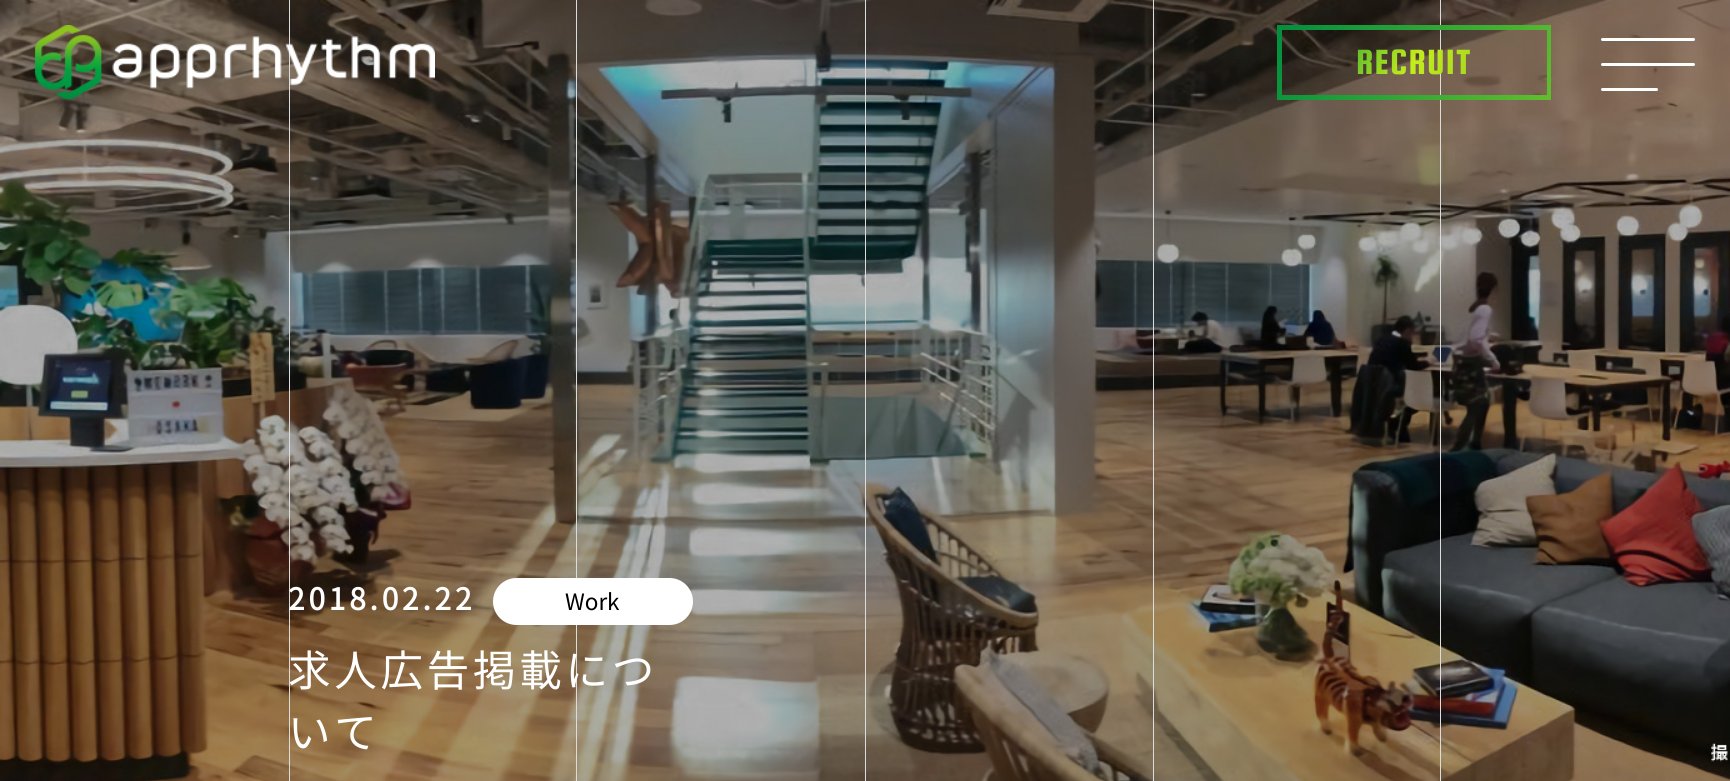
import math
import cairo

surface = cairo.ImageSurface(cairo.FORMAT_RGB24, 1730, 781)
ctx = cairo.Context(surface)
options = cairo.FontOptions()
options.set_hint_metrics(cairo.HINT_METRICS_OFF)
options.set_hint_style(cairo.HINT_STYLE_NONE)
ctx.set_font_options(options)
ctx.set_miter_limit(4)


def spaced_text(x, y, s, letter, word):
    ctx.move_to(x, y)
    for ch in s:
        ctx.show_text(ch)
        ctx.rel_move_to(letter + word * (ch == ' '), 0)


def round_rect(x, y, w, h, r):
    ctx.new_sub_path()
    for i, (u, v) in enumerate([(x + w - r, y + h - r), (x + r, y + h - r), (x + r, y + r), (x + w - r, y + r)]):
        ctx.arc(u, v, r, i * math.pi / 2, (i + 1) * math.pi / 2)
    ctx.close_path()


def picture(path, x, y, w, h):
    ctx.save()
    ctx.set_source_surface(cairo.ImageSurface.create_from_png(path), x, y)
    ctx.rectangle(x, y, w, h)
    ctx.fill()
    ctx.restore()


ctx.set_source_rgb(1, 1, 1)
ctx.paint()
picture("img2.png", 0, 0, 1730, 781)
ctx.set_source_rgb(0.863, 0.863, 0.863)
ctx.rectangle(289, 0, 1, 781)
ctx.fill()
picture("img1.png", 34, 25, 401, 75)
ctx.rectangle(1440, 0, 1, 781)
ctx.fill()
ctx.select_font_face("Squada One")
ctx.set_font_size(37.5)
gradient = cairo.LinearGradient(1316, 4.6, 1512, 118)
gradient.add_color_stop_rgba(0, 0, 0.557, 0.247, 1)
gradient.add_color_stop_rgba(0.5, 0.765, 0.929, 0.106, 1)
gradient.add_color_stop_rgba(1, 0.557, 0.765, 0.122, 1)
ctx.set_source(gradient)
spaced_text(1356, 74, "RECRUIT", 1.25, 0)
gradient = cairo.LinearGradient(1349, -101, 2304, 451)
gradient.add_color_stop_rgba(0, 0, 0.557, 0.247, 1)
gradient.add_color_stop_rgba(0.5, 0.765, 0.929, 0.106, 1)
gradient.add_color_stop_rgba(1, 0.557, 0.765, 0.122, 1)
ctx.set_source(gradient)
ctx.set_fill_rule(cairo.FILL_RULE_EVEN_ODD)
ctx.new_path()
ctx.move_to(1277, 100)
ctx.line_to(1551, 100)
ctx.line_to(1551, 25)
ctx.line_to(1277, 25)
ctx.close_path()
ctx.move_to(1282, 30)
ctx.line_to(1282, 95)
ctx.line_to(1547, 95)
ctx.line_to(1547, 30)
ctx.close_path()
ctx.fill()
ctx.set_source_rgb(1, 1, 1)
round_rect(1601, 63, 94, 3, 1.5)
ctx.fill()
round_rect(1601, 38, 94, 3, 1.5)
ctx.fill()
round_rect(1601, 88, 57, 3, 1.5)
ctx.fill()
ctx.set_source_rgb(0.863, 0.863, 0.863)
ctx.rectangle(576, 0, 1, 781)
ctx.fill()
ctx.rectangle(1153, 0, 1, 781)
ctx.fill()
ctx.select_font_face("Noto Sans JP", cairo.FONT_SLANT_NORMAL, cairo.FONT_WEIGHT_BOLD)
ctx.set_font_size(30)
ctx.set_source_rgb(1, 1, 1)
spaced_text(288, 610, "2018.02.22", 3.75, 0)
round_rect(493, 578, 200, 47, 23.5)
ctx.fill()
ctx.select_font_face("Noto Sans JP Thin")
ctx.set_font_size(22.5)
ctx.set_source_rgb(0, 0, 0)
ctx.move_to(565, 610)
ctx.show_text("Work")
ctx.set_font_size(42.5)
ctx.set_source_rgb(1, 1, 1)
spaced_text(288, 686, "求人広告掲載につ", 3.75, 0)
spaced_text(288, 748, "いて", 3.75, 0)
ctx.set_source_rgb(0.863, 0.863, 0.863)
ctx.rectangle(865, 0, 1, 781)
ctx.fill()
surface.write_to_png("page.png")
